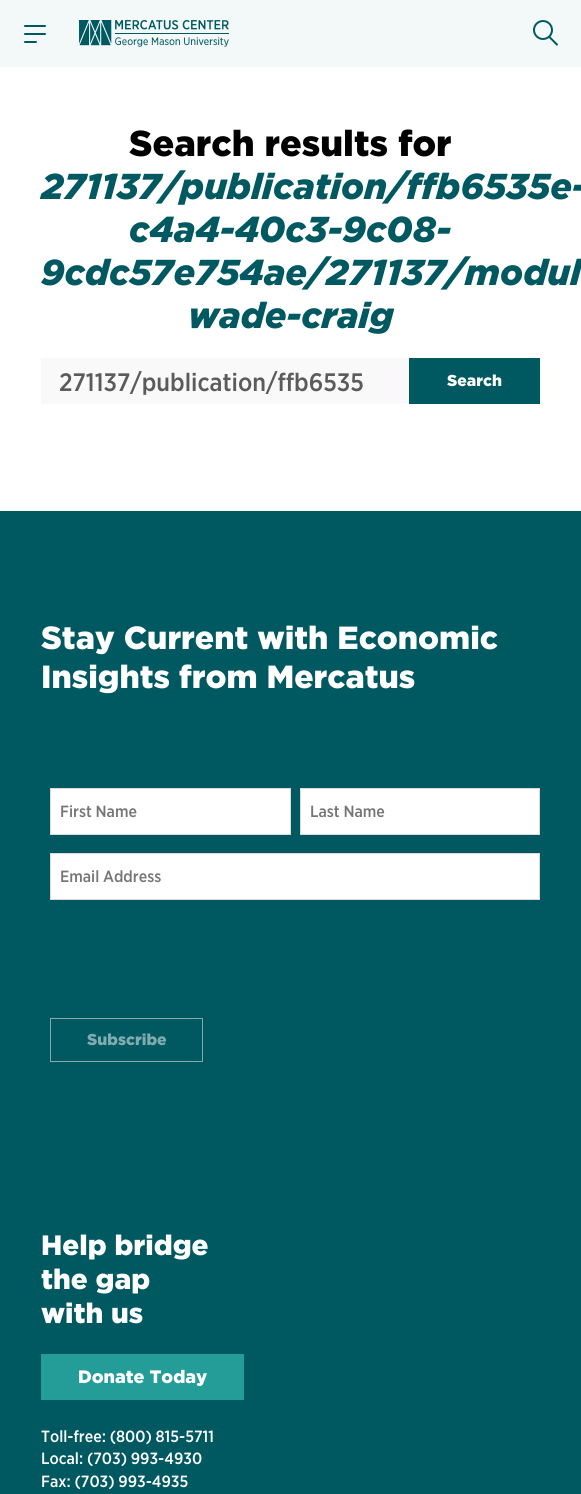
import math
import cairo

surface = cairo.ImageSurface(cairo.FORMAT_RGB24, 581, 1494)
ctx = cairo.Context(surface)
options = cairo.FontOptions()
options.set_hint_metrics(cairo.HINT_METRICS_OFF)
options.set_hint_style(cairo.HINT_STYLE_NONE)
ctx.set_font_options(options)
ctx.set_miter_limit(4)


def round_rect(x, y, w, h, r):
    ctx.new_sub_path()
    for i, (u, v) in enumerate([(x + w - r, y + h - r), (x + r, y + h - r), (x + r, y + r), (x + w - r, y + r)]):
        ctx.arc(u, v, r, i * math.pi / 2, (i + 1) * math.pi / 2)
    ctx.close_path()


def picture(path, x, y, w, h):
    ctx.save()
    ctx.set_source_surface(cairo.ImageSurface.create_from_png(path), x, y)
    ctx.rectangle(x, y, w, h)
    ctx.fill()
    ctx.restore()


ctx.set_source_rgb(1, 1, 1)
ctx.paint()
ctx.set_source_rgb(0.953, 0.976, 0.973)
ctx.rectangle(0, 0, 581, 67)
ctx.fill()
ctx.set_source_rgb(0, 0.349, 0.38)
round_rect(24, 25, 22, 2, 1)
ctx.fill()
round_rect(24, 33, 22, 2, 1)
ctx.fill()
round_rect(24, 41, 13, 2, 1)
ctx.fill()
picture("img1.png", 79, 20, 150, 27)
picture("img2.png", 533, 20, 25, 26)
ctx.select_font_face("Gotham Black")
ctx.set_font_size(36)
ctx.set_source_rgb(0, 0, 0)
ctx.move_to(129, 156)
ctx.show_text("Search results for")
ctx.select_font_face("Gotham Black", cairo.FONT_SLANT_ITALIC)
ctx.set_source_rgb(0, 0.349, 0.38)
ctx.move_to(41, 199)
ctx.show_text("271137/publication/ffb6535e-")
ctx.move_to(129, 242)
ctx.show_text("c4a4-40c3-9c08-")
ctx.move_to(41, 285)
ctx.show_text("9cdc57e754ae/271137/modul")
ctx.move_to(188, 328)
ctx.show_text("wade-craig")
ctx.set_source_rgb(0.973, 0.973, 0.973)
ctx.rectangle(41, 358, 368, 46)
ctx.fill()
ctx.select_font_face("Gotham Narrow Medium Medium")
ctx.set_font_size(25.25)
ctx.set_source_rgb(0.357, 0.357, 0.357)
ctx.move_to(59, 391)
ctx.show_text("271137/publication/ffb6535")
ctx.set_source_rgb(0, 0.349, 0.38)
ctx.rectangle(409, 358, 131, 46)
ctx.fill()
ctx.select_font_face("Gotham Black")
ctx.set_font_size(15.75)
ctx.set_source_rgb(1, 1, 1)
ctx.move_to(447, 386)
ctx.show_text("Search")
ctx.set_source_rgb(0, 0.349, 0.38)
ctx.new_path()
ctx.move_to(0, 827)
ctx.line_to(0, 1143)
ctx.line_to(581, 1143)
ctx.line_to(581, 805)
ctx.close_path()
ctx.fill()
ctx.rectangle(0, 511, 581, 316)
ctx.fill()
ctx.set_font_size(32)
ctx.set_source_rgb(1, 1, 1)
ctx.move_to(41, 649)
ctx.show_text("Stay Current with Economic")
ctx.move_to(41, 688)
ctx.show_text("Insights from Mercatus")
ctx.rectangle(50.5, 788.5, 240, 46)
ctx.fill_preserve()
ctx.set_source_rgb(0.859, 0.859, 0.859)
ctx.set_line_width(1)
ctx.stroke()
ctx.select_font_face("Gotham Narrow Medium Medium")
ctx.set_font_size(16.25)
ctx.set_source_rgb(0.463, 0.463, 0.463)
ctx.move_to(60, 817)
ctx.show_text("First Name")
ctx.set_source_rgb(1, 1, 1)
ctx.rectangle(300.5, 788.5, 239, 46)
ctx.fill_preserve()
ctx.set_source_rgb(0.859, 0.859, 0.859)
ctx.stroke()
ctx.set_source_rgb(0.463, 0.463, 0.463)
ctx.move_to(310, 817)
ctx.show_text("Last Name")
ctx.set_source_rgb(1, 1, 1)
ctx.rectangle(50.5, 853.5, 489, 46)
ctx.fill_preserve()
ctx.set_source_rgb(0.859, 0.859, 0.859)
ctx.stroke()
ctx.set_source_rgb(0.463, 0.463, 0.463)
ctx.move_to(60, 882)
ctx.show_text("Email Address")
ctx.rectangle(50.5, 1018.5, 152, 43)
ctx.set_source_rgb(0.502, 0.675, 0.69)
ctx.stroke()
ctx.select_font_face("Gotham Black")
ctx.set_font_size(15.75)
ctx.move_to(87, 1045)
ctx.show_text("Subscribe")
ctx.set_source_rgb(0, 0.349, 0.38)
ctx.rectangle(0, 1143, 581, 351)
ctx.fill()
ctx.set_font_size(28)
ctx.set_source_rgb(1, 1, 1)
ctx.move_to(41, 1255)
ctx.show_text("Help bridge")
ctx.move_to(41, 1289)
ctx.show_text("the gap")
ctx.move_to(41, 1323)
ctx.show_text("with us")
ctx.set_source_rgb(0.141, 0.612, 0.592)
ctx.rectangle(41, 1354, 203, 46)
ctx.fill()
ctx.set_font_size(18)
ctx.set_source_rgb(1, 1, 1)
ctx.move_to(78, 1383)
ctx.show_text("Donate Today")
ctx.select_font_face("Gotham Narrow Medium Medium")
ctx.set_font_size(16.25)
ctx.move_to(41, 1442)
ctx.show_text("Toll-free: (800) 815-5711")
ctx.move_to(41, 1464)
ctx.show_text("Local: (703) 993-4930")
ctx.move_to(41, 1487)
ctx.show_text("Fax: (703) 993-4935")
surface.write_to_png("page.png")
